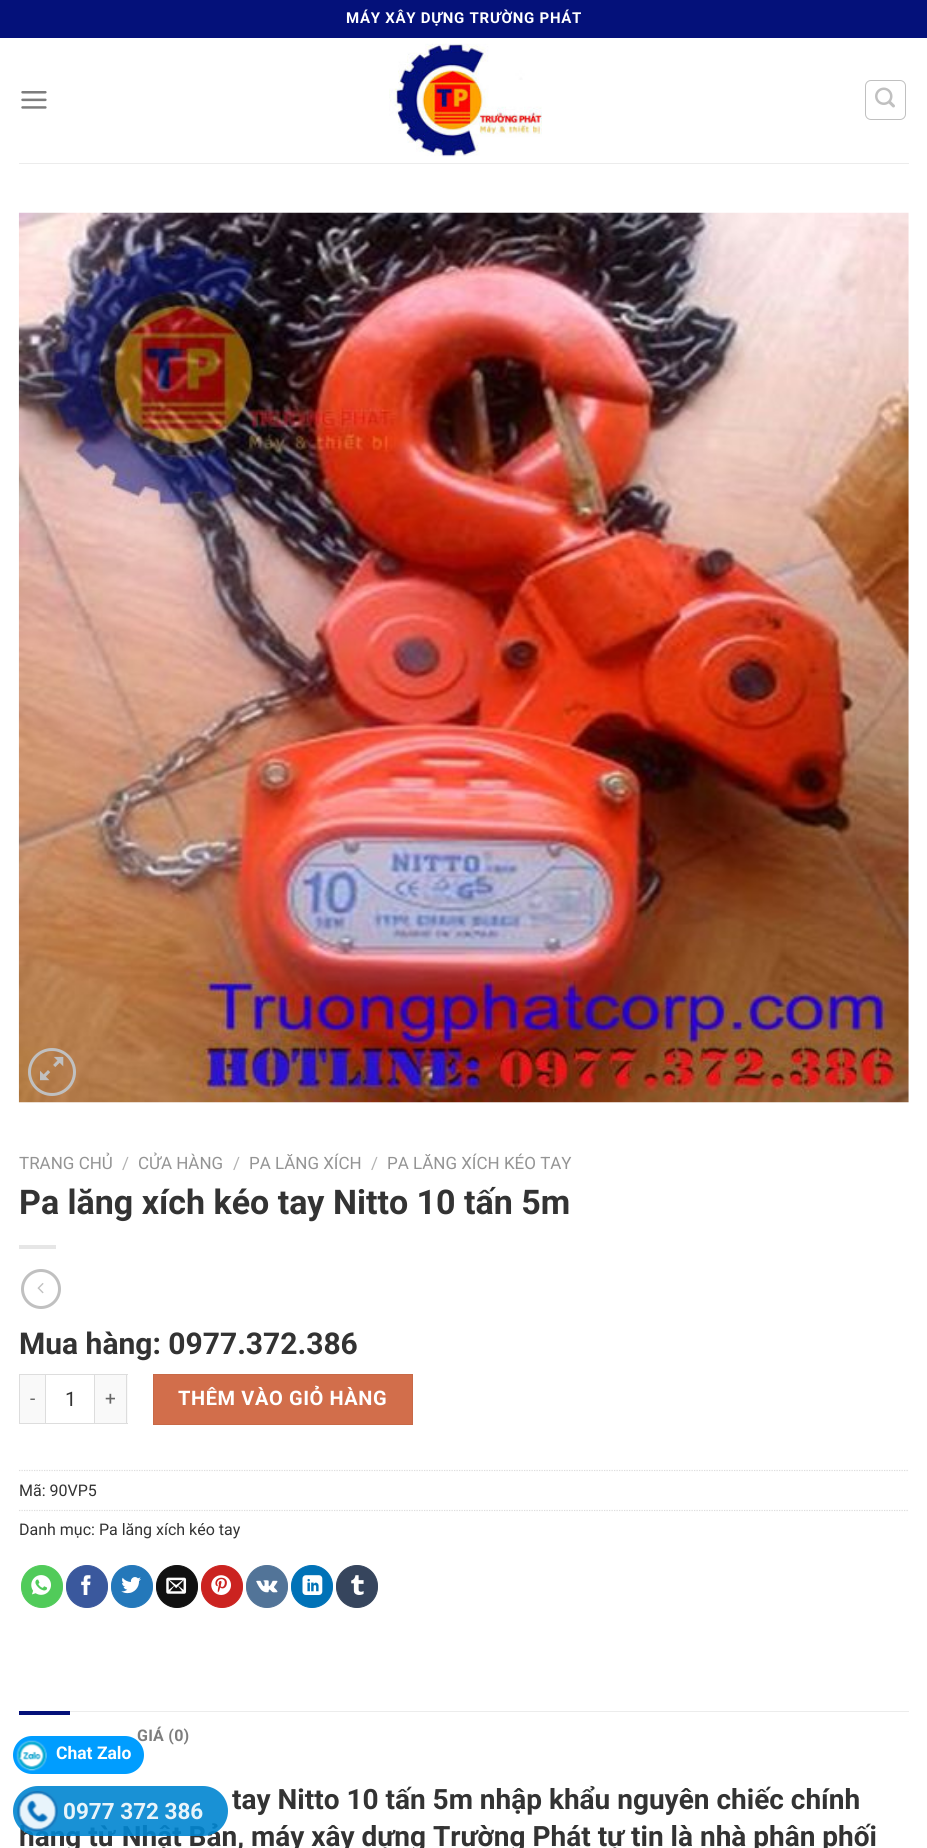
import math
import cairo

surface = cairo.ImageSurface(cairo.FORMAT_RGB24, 927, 1848)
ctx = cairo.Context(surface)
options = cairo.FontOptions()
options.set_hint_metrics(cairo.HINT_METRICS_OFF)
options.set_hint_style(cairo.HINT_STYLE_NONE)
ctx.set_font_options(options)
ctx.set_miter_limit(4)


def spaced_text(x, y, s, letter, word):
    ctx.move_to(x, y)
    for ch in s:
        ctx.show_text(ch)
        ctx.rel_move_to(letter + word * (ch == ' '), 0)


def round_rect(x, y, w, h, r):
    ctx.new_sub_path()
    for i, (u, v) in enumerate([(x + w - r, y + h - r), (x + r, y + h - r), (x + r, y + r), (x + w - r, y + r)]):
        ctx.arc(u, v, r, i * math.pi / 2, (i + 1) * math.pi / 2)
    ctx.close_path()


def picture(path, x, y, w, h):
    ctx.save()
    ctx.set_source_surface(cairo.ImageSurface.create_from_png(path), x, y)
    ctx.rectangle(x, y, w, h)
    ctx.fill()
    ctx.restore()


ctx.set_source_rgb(1, 1, 1)
ctx.paint()
ctx.set_source_rgb(0.016, 0.067, 0.478)
ctx.rectangle(0, 0, 927, 38)
ctx.fill()
ctx.select_font_face("Roboto", cairo.FONT_SLANT_NORMAL, cairo.FONT_WEIGHT_BOLD)
ctx.set_font_size(15)
ctx.set_source_rgb(1, 1, 1)
spaced_text(346, 23, "MÁY XÂY DỰNG TRƯỜNG PHÁT", 0.75, 0)
picture("img1.png", 21, 91, 26, 18)
picture("img2.png", 389, 43, 153, 114)
round_rect(865.5, 80.5, 40, 39, 5.5)
ctx.set_source_rgb(0.753, 0.753, 0.753)
ctx.set_line_width(1)
ctx.stroke()
picture("img3.png", 875, 87, 20, 21)
ctx.set_source_rgb(0.922, 0.922, 0.922)
ctx.rectangle(19, 163, 890, 1)
ctx.fill()
picture("img4.png", 18, 212, 891, 891)
ctx.arc(52, 1072, 22.5, 0, 2 * math.pi)
ctx.set_source_rgb(0.753, 0.753, 0.753)
ctx.set_line_width(3)
ctx.stroke()
picture("img5.png", 40, 1056, 24, 25)
ctx.select_font_face("Roboto")
ctx.set_font_size(17)
ctx.set_source_rgb(0.58, 0.58, 0.58)
ctx.move_to(19, 1169)
ctx.show_text("TRANG CHỦ")
ctx.set_source_rgb(0.698, 0.698, 0.698)
ctx.move_to(122, 1169)
ctx.show_text("/")
ctx.set_source_rgb(0.58, 0.58, 0.58)
ctx.move_to(138, 1169)
ctx.show_text("CỬA HÀNG")
ctx.set_source_rgb(0.698, 0.698, 0.698)
ctx.move_to(233, 1169)
ctx.show_text("/")
ctx.set_source_rgb(0.58, 0.58, 0.58)
ctx.move_to(249, 1169)
ctx.show_text("PA LĂNG XÍCH")
ctx.set_source_rgb(0.698, 0.698, 0.698)
ctx.move_to(371, 1169)
ctx.show_text("/")
ctx.set_source_rgb(0.58, 0.58, 0.58)
ctx.move_to(387, 1169)
ctx.show_text("PA LĂNG XÍCH KÉO TAY")
ctx.select_font_face("Roboto", cairo.FONT_SLANT_NORMAL, cairo.FONT_WEIGHT_BOLD)
ctx.set_font_size(34)
ctx.set_source_rgb(0.2, 0.2, 0.2)
ctx.move_to(19, 1214)
ctx.show_text("Pa lăng xích kéo tay Nitto 10 tấn 5m")
ctx.set_source_rgb(0.902, 0.902, 0.902)
ctx.rectangle(19, 1245, 37, 4)
ctx.fill()
ctx.arc(41, 1289, 18.5, 0, 2 * math.pi)
ctx.set_source_rgb(0.753, 0.753, 0.753)
ctx.stroke()
picture("img6.png", 37, 1283, 7, 11)
ctx.set_font_size(30)
ctx.set_source_rgb(0.2, 0.2, 0.2)
ctx.move_to(19, 1354)
ctx.show_text("Mua hàng: 0977.372.386")
ctx.set_source_rgb(0.976, 0.976, 0.976)
ctx.rectangle(20, 1375, 25, 48)
ctx.fill()
ctx.set_source_rgb(0.867, 0.867, 0.867)
ctx.rectangle(19, 1374, 26, 1)
ctx.fill()
ctx.rectangle(19, 1423, 26, 1)
ctx.fill()
ctx.rectangle(19, 1374, 1, 50)
ctx.fill()
ctx.select_font_face("Roboto")
ctx.set_font_size(19)
ctx.set_source_rgb(0.4, 0.4, 0.4)
spaced_text(30, 1405, "-", 1, 0)
ctx.rectangle(45.5, 1374.5, 49, 49)
ctx.set_source_rgb(0.867, 0.867, 0.867)
ctx.set_line_width(1)
ctx.stroke()
ctx.set_font_size(20)
ctx.set_source_rgb(0.2, 0.2, 0.2)
ctx.move_to(65, 1406)
ctx.show_text("1")
ctx.set_source_rgb(0.976, 0.976, 0.976)
ctx.rectangle(95, 1375, 33, 48)
ctx.fill()
ctx.set_source_rgb(0.867, 0.867, 0.867)
ctx.rectangle(95, 1374, 33, 1)
ctx.fill()
ctx.rectangle(126, 1374, 1, 50)
ctx.fill()
ctx.rectangle(95, 1423, 33, 1)
ctx.fill()
ctx.set_font_size(19)
ctx.set_source_rgb(0.4, 0.4, 0.4)
spaced_text(105, 1405, "+", 1, 0)
ctx.set_source_rgb(0.824, 0.431, 0.294)
ctx.rectangle(153.5, 1374.5, 259, 50)
ctx.fill_preserve()
ctx.set_source_rgb(0.784, 0.412, 0.278)
ctx.stroke()
ctx.select_font_face("Roboto", cairo.FONT_SLANT_NORMAL, cairo.FONT_WEIGHT_BOLD)
ctx.set_font_size(20)
ctx.set_source_rgb(1, 1, 1)
spaced_text(178, 1405, "THÊM VÀO GIỎ HÀNG", 0.6, 0)
ctx.new_path()
ctx.move_to(19, 1470.5)
ctx.line_to(909, 1470.5)
ctx.set_source_rgb(0.867, 0.867, 0.867)
ctx.set_line_width(1.2)
ctx.set_dash([1.25, 1.25])
ctx.stroke()
ctx.select_font_face("Roboto")
ctx.set_font_size(16)
ctx.set_source_rgb(0.2, 0.2, 0.2)
ctx.move_to(19, 1496)
ctx.show_text("Mã: 90VP5")
ctx.new_path()
ctx.move_to(19, 1510.5)
ctx.line_to(909, 1510.5)
ctx.set_source_rgb(0.867, 0.867, 0.867)
ctx.stroke()
ctx.set_source_rgb(0.2, 0.2, 0.2)
ctx.move_to(19, 1535)
ctx.show_text("Danh mục: Pa lăng xích kéo tay")
ctx.set_source_rgb(0.318, 0.796, 0.353)
round_rect(21.5, 1565.5, 41, 42, 20.5)
ctx.fill_preserve()
ctx.set_line_width(1)
ctx.set_dash([])
ctx.stroke()
picture("img7.png", 31, 1575, 20, 20)
ctx.set_source_rgb(0.227, 0.345, 0.616)
round_rect(66.5, 1565.5, 41, 42, 20.5)
ctx.fill_preserve()
ctx.stroke()
picture("img8.png", 81, 1575, 10, 20)
ctx.set_source_rgb(0.141, 0.471, 0.729)
round_rect(111.5, 1565.5, 41, 42, 20.5)
ctx.fill_preserve()
ctx.stroke()
picture("img9.png", 121, 1577, 20, 17)
ctx.set_source_rgb(0.067, 0.067, 0.067)
round_rect(156.5, 1565.5, 41, 42, 20.5)
ctx.fill_preserve()
ctx.stroke()
picture("img10.png", 166, 1577, 21, 17)
ctx.set_source_rgb(0.796, 0.137, 0.125)
round_rect(201.5, 1565.5, 41, 42, 20.5)
ctx.fill_preserve()
ctx.stroke()
picture("img11.png", 211, 1575, 20, 20)
ctx.set_source_rgb(0.322, 0.455, 0.596)
round_rect(246.5, 1565.5, 41, 42, 20.5)
ctx.fill_preserve()
ctx.stroke()
picture("img12.png", 256, 1580, 22, 13)
ctx.set_source_rgb(0, 0.447, 0.718)
round_rect(291.5, 1565.5, 41, 42, 20.5)
ctx.fill_preserve()
ctx.stroke()
picture("img13.png", 302, 1575, 21, 20)
ctx.set_source_rgb(0.212, 0.271, 0.365)
round_rect(336.5, 1565.5, 41, 42, 20.5)
ctx.fill_preserve()
ctx.stroke()
picture("img14.png", 351, 1575, 13, 20)
ctx.set_source_rgb(0.925, 0.925, 0.925)
ctx.rectangle(70, 1711, 839, 1)
ctx.fill()
ctx.set_source_rgb(0.016, 0.067, 0.478)
ctx.rectangle(19, 1711, 51, 4)
ctx.fill()
ctx.select_font_face("Roboto", cairo.FONT_SLANT_NORMAL, cairo.FONT_WEIGHT_BOLD)
ctx.set_source_rgb(0.49, 0.49, 0.49)
spaced_text(137, 1741, "GIÁ (0)", 0.25, 0)
ctx.set_font_size(28)
ctx.set_source_rgb(0.2, 0.2, 0.2)
ctx.move_to(232, 1809)
ctx.show_text("tay Nitto 10 tấn 5m nhập khẩu nguyên chiếc chính")
ctx.move_to(19, 1846)
ctx.show_text("hãng từ Nhật Bản, máy xây dựng Trường Phát tự tin là nhà phân phối")
ctx.set_source_rgb(0, 0.616, 1)
round_rect(13, 1736, 131, 38, 19)
ctx.fill()
picture("img15.png", 16, 1740, 31, 31)
ctx.set_font_size(17.5)
ctx.set_source_rgb(1, 1, 1)
ctx.move_to(56, 1759)
ctx.show_text("Chat Zalo")
ctx.set_source_rgba(0, 0.525, 0.82, 0.9)
round_rect(13, 1786, 215, 50, 25)
ctx.fill()
picture("img16.png", 17, 1791, 41, 41)
ctx.set_font_size(22.5)
ctx.set_source_rgb(0.91, 0.957, 0.98)
ctx.move_to(63, 1819)
ctx.show_text("0977 372 386")
surface.write_to_png("page.png")
